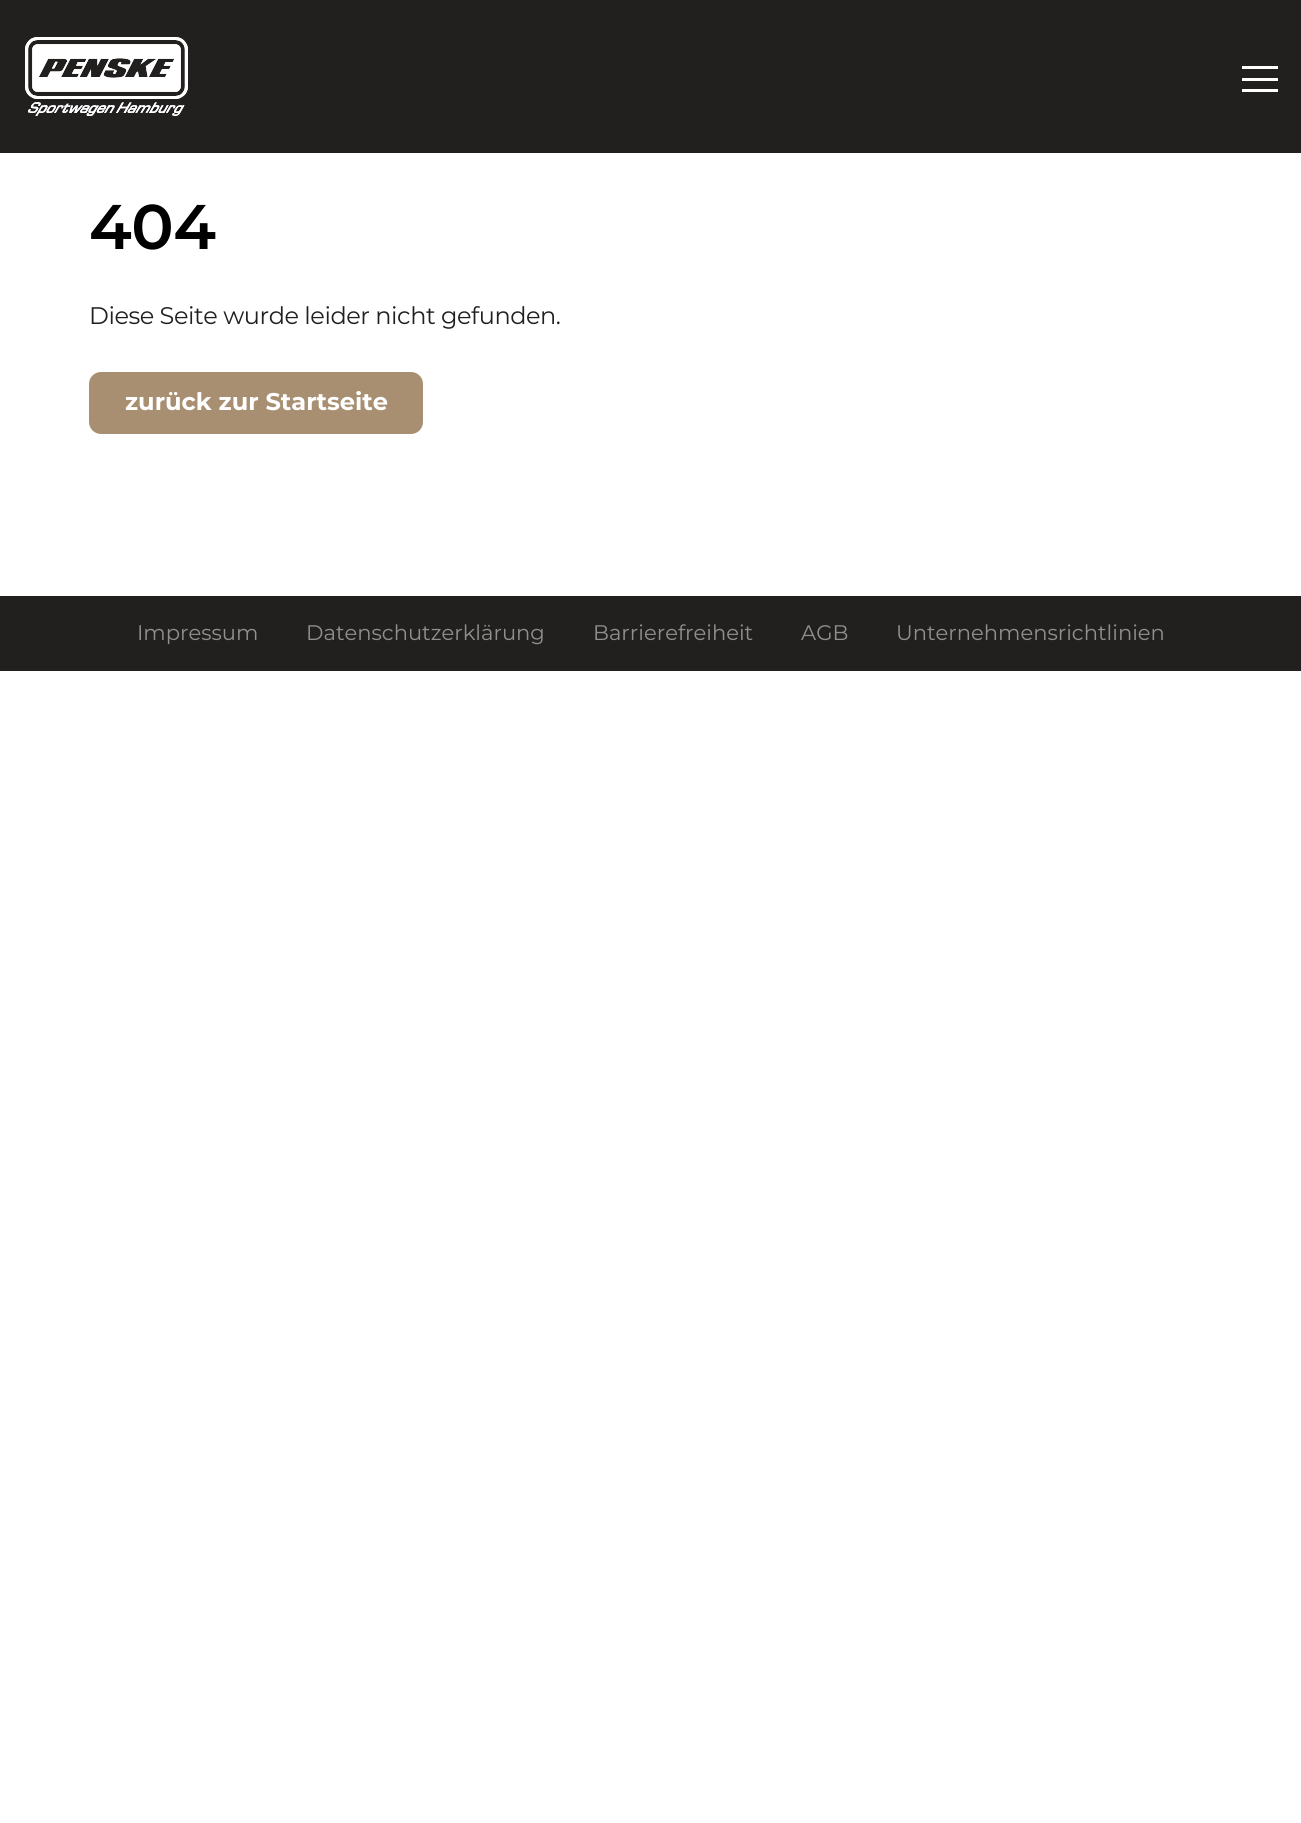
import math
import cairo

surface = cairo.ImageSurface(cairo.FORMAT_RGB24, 1301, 1823)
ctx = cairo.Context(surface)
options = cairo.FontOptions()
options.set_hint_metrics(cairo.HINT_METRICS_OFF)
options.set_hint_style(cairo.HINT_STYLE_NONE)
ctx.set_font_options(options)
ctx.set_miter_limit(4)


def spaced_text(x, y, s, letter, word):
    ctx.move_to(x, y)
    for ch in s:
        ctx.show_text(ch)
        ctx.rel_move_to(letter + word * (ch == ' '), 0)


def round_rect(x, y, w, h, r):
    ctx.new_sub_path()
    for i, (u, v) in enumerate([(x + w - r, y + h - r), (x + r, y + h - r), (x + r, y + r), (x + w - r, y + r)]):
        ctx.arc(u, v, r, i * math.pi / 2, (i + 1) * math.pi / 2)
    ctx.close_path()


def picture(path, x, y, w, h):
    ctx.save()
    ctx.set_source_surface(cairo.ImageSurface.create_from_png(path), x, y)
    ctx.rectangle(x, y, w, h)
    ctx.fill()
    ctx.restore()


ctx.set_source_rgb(1, 1, 1)
ctx.paint()
ctx.set_source_rgb(0.133, 0.122, 0.122)
ctx.rectangle(0, 0, 1301, 153)
ctx.fill()
picture("img1.png", 25, 37, 163, 79)
ctx.set_source_rgb(1, 1, 1)
ctx.rectangle(1242, 66, 36, 3)
ctx.fill()
ctx.rectangle(1242, 78, 36, 3)
ctx.fill()
ctx.rectangle(1242, 89, 36, 3)
ctx.fill()
ctx.select_font_face("Montserrat SemiBold")
ctx.set_font_size(63)
ctx.set_source_rgb(0, 0, 0)
spaced_text(89, 249, "404", -0.5, 0)
ctx.select_font_face("Montserrat")
ctx.set_font_size(24)
ctx.set_source_rgb(0.133, 0.122, 0.122)
spaced_text(89, 324, "Diese Seite wurde leider nicht gefunden.", -0.45, 0)
ctx.set_source_rgb(0.659, 0.561, 0.447)
round_rect(89, 372, 334, 62, 12)
ctx.fill()
ctx.select_font_face("Montserrat", cairo.FONT_SLANT_NORMAL, cairo.FONT_WEIGHT_BOLD)
ctx.set_font_size(24.1)
ctx.set_source_rgb(1, 1, 1)
ctx.move_to(125, 410)
ctx.show_text("zurück zur Startseite")
ctx.set_source_rgb(0.133, 0.122, 0.122)
ctx.rectangle(0, 596, 1301, 75)
ctx.fill()
ctx.select_font_face("Montserrat")
ctx.set_font_size(21.1)
ctx.set_source_rgb(0.565, 0.561, 0.561)
ctx.move_to(137, 640)
ctx.show_text("Impressum")
ctx.move_to(306, 640)
ctx.show_text("Datenschutzerklärung")
ctx.move_to(593, 640)
ctx.show_text("Barrierefreiheit")
ctx.move_to(801, 640)
ctx.show_text("AGB")
ctx.move_to(896, 640)
ctx.show_text("Unternehmensrichtlinien")
surface.write_to_png("page.png")
